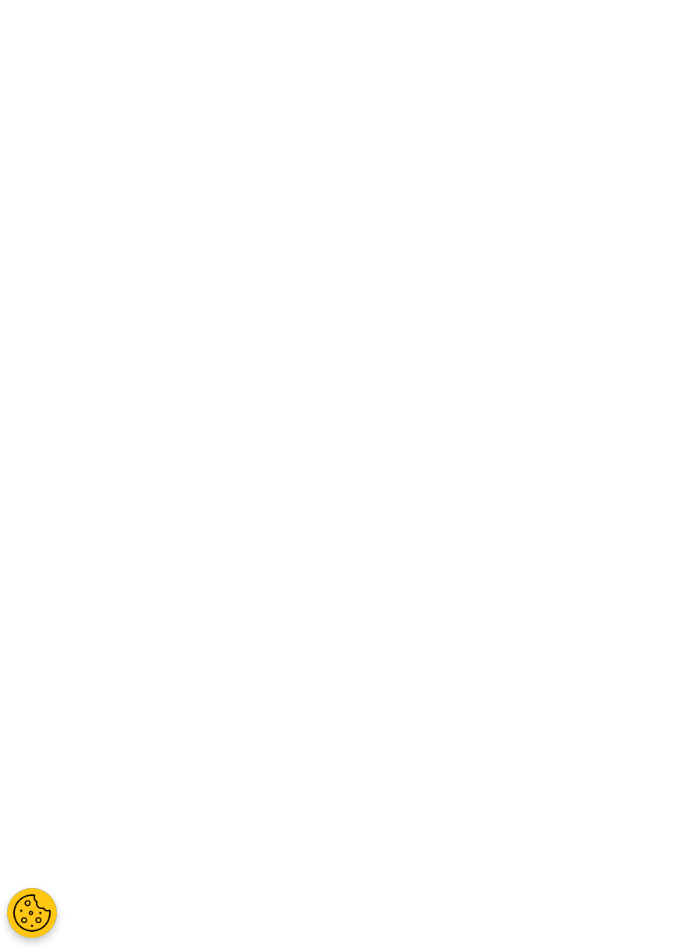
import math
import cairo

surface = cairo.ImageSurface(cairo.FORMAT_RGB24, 695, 948)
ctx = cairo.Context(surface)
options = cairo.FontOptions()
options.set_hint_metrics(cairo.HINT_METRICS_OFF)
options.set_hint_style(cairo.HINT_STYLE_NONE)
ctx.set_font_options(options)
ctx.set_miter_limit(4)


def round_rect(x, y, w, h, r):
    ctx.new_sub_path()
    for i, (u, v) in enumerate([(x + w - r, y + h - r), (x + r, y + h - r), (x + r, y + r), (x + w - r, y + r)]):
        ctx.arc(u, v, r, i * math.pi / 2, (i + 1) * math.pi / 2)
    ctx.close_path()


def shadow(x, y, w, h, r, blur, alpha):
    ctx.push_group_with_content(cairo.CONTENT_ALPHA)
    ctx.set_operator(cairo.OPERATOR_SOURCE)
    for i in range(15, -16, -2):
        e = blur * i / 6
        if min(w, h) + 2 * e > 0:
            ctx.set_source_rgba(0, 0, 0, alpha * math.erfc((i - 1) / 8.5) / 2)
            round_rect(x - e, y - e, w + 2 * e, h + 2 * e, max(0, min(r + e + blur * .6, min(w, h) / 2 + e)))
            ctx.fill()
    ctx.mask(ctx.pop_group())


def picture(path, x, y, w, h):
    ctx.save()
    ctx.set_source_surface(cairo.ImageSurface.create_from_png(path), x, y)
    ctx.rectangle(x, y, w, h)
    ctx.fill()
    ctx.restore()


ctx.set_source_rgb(1, 1, 1)
ctx.paint()
ctx.set_source_rgb(0, 0, 0)
shadow(7, 892, 50, 50, 25, 4, 0.2)
ctx.set_source_rgb(0.416, 0.667, 0.894)
ctx.arc(32, 913, 25, 0, 2 * math.pi)
ctx.fill()
picture("img1.png", 7, 888, 50, 50)
surface.write_to_png("page.png")
